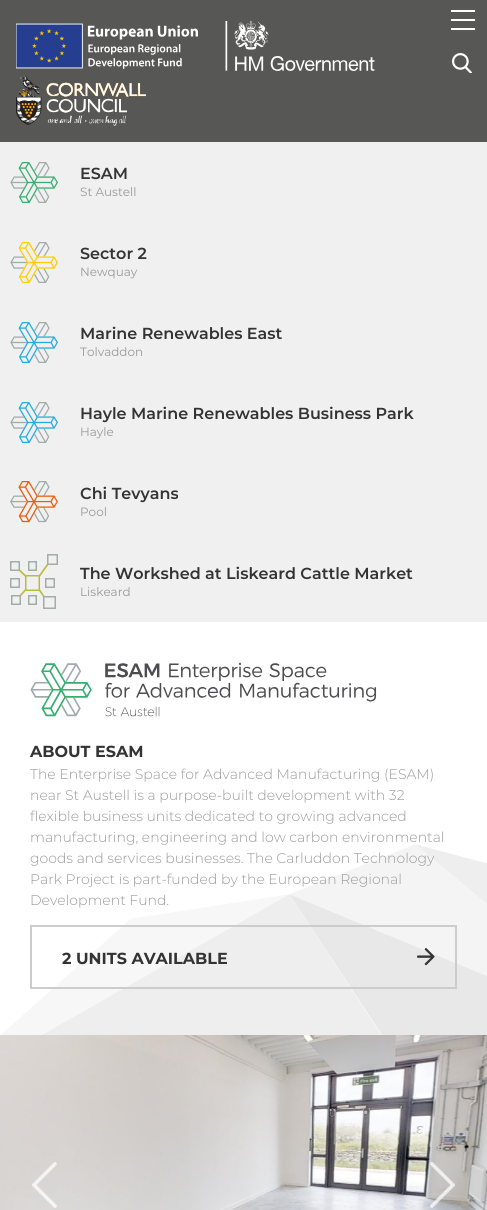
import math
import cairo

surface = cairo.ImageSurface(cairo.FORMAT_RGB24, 487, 1210)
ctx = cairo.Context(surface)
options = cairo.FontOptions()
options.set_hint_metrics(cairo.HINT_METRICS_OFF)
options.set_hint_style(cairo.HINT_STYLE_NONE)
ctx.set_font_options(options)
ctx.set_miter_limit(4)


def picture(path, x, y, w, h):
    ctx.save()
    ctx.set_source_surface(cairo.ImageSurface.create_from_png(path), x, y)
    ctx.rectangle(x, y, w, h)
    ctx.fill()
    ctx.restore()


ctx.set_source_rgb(1, 1, 1)
ctx.paint()
ctx.set_source_rgb(0.341, 0.341, 0.337)
ctx.rectangle(0, 0, 487, 142)
ctx.fill()
picture("img1.png", 16, 23, 182, 46)
picture("img2.png", 225, 21, 150, 50)
picture("img3.png", 451, 10, 24, 20)
picture("img4.png", 452, 53, 20, 20)
picture("img5.png", 16, 76, 130, 50)
ctx.set_source_rgb(0.941, 0.941, 0.941)
ctx.rectangle(0, 142, 487, 480)
ctx.fill()
picture("img6.png", 10, 162, 48, 41)
ctx.select_font_face("Montserrat SemiBold")
ctx.set_font_size(16)
ctx.set_source_rgb(0.2, 0.2, 0.2)
ctx.move_to(80, 179)
ctx.show_text("ESAM")
ctx.select_font_face("Montserrat")
ctx.set_font_size(12)
ctx.set_source_rgb(0.6, 0.6, 0.6)
ctx.move_to(80, 196)
ctx.show_text("St Austell")
picture("img7.png", 10, 242, 48, 41)
ctx.select_font_face("Montserrat SemiBold")
ctx.set_font_size(16)
ctx.set_source_rgb(0.2, 0.2, 0.2)
ctx.move_to(80, 259)
ctx.show_text("Sector 2")
ctx.select_font_face("Montserrat")
ctx.set_font_size(12)
ctx.set_source_rgb(0.6, 0.6, 0.6)
ctx.move_to(80, 276)
ctx.show_text("Newquay")
picture("img8.png", 10, 322, 48, 41)
ctx.select_font_face("Montserrat SemiBold")
ctx.set_font_size(16)
ctx.set_source_rgb(0.2, 0.2, 0.2)
ctx.move_to(80, 339)
ctx.show_text("Marine Renewables East")
ctx.select_font_face("Montserrat")
ctx.set_font_size(12)
ctx.set_source_rgb(0.6, 0.6, 0.6)
ctx.move_to(80, 356)
ctx.show_text("Tolvaddon")
picture("img8.png", 10, 402, 48, 41)
ctx.select_font_face("Montserrat SemiBold")
ctx.set_font_size(16)
ctx.set_source_rgb(0.2, 0.2, 0.2)
ctx.move_to(80, 419)
ctx.show_text("Hayle Marine Renewables Business Park")
ctx.select_font_face("Montserrat")
ctx.set_font_size(12)
ctx.set_source_rgb(0.6, 0.6, 0.6)
ctx.move_to(80, 436)
ctx.show_text("Hayle")
picture("img9.png", 10, 481, 48, 42)
ctx.select_font_face("Montserrat SemiBold")
ctx.set_font_size(16)
ctx.set_source_rgb(0.2, 0.2, 0.2)
ctx.move_to(80, 499)
ctx.show_text("Chi Tevyans")
ctx.select_font_face("Montserrat")
ctx.set_font_size(12)
ctx.set_source_rgb(0.6, 0.6, 0.6)
ctx.move_to(80, 516)
ctx.show_text("Pool")
picture("img10.png", 10, 554, 48, 55)
ctx.select_font_face("Montserrat SemiBold")
ctx.set_font_size(16)
ctx.set_source_rgb(0.2, 0.2, 0.2)
ctx.move_to(80, 579)
ctx.show_text("The Workshed at Liskeard Cattle Market")
ctx.select_font_face("Montserrat")
ctx.set_font_size(12)
ctx.set_source_rgb(0.6, 0.6, 0.6)
ctx.move_to(80, 596)
ctx.show_text("Liskeard")
picture("img11.png", 1, 844, 486, 191)
picture("img12.png", 30, 662, 347, 55)
ctx.select_font_face("Montserrat", cairo.FONT_SLANT_NORMAL, cairo.FONT_WEIGHT_BOLD)
ctx.set_font_size(16)
ctx.set_source_rgb(0.2, 0.2, 0.2)
ctx.move_to(30, 757)
ctx.show_text("ABOUT ESAM")
ctx.select_font_face("Montserrat Light")
ctx.set_font_size(14)
ctx.set_source_rgb(0.6, 0.6, 0.6)
ctx.move_to(30, 779)
ctx.show_text("The Enterprise Space for Advanced Manufacturing (ESAM)")
ctx.move_to(30, 800)
ctx.show_text("near St Austell is a purpose-built development with 32")
ctx.move_to(30, 821)
ctx.show_text("flexible business units dedicated to growing advanced")
ctx.move_to(30, 842)
ctx.show_text("manufacturing, engineering and low carbon environmental")
ctx.move_to(30, 863)
ctx.show_text("goods and services businesses. The Carluddon Technology")
ctx.move_to(30, 884)
ctx.show_text("Park Project is part-funded by the European Regional")
ctx.move_to(30, 905)
ctx.show_text("Development Fund.")
picture("img13.png", 417, 948, 18, 18)
ctx.rectangle(31, 926, 425, 62)
ctx.set_source_rgb(0.8, 0.8, 0.8)
ctx.stroke()
ctx.select_font_face("Montserrat", cairo.FONT_SLANT_NORMAL, cairo.FONT_WEIGHT_BOLD)
ctx.set_font_size(16)
ctx.set_source_rgb(0.2, 0.2, 0.2)
ctx.move_to(62, 964)
ctx.show_text("2 UNITS AVAILABLE")
picture("img14.png", 0, 1035, 487, 175)
picture("img15.png", 32, 1162, 25, 46)
picture("img16.png", 430, 1162, 25, 46)
surface.write_to_png("page.png")
